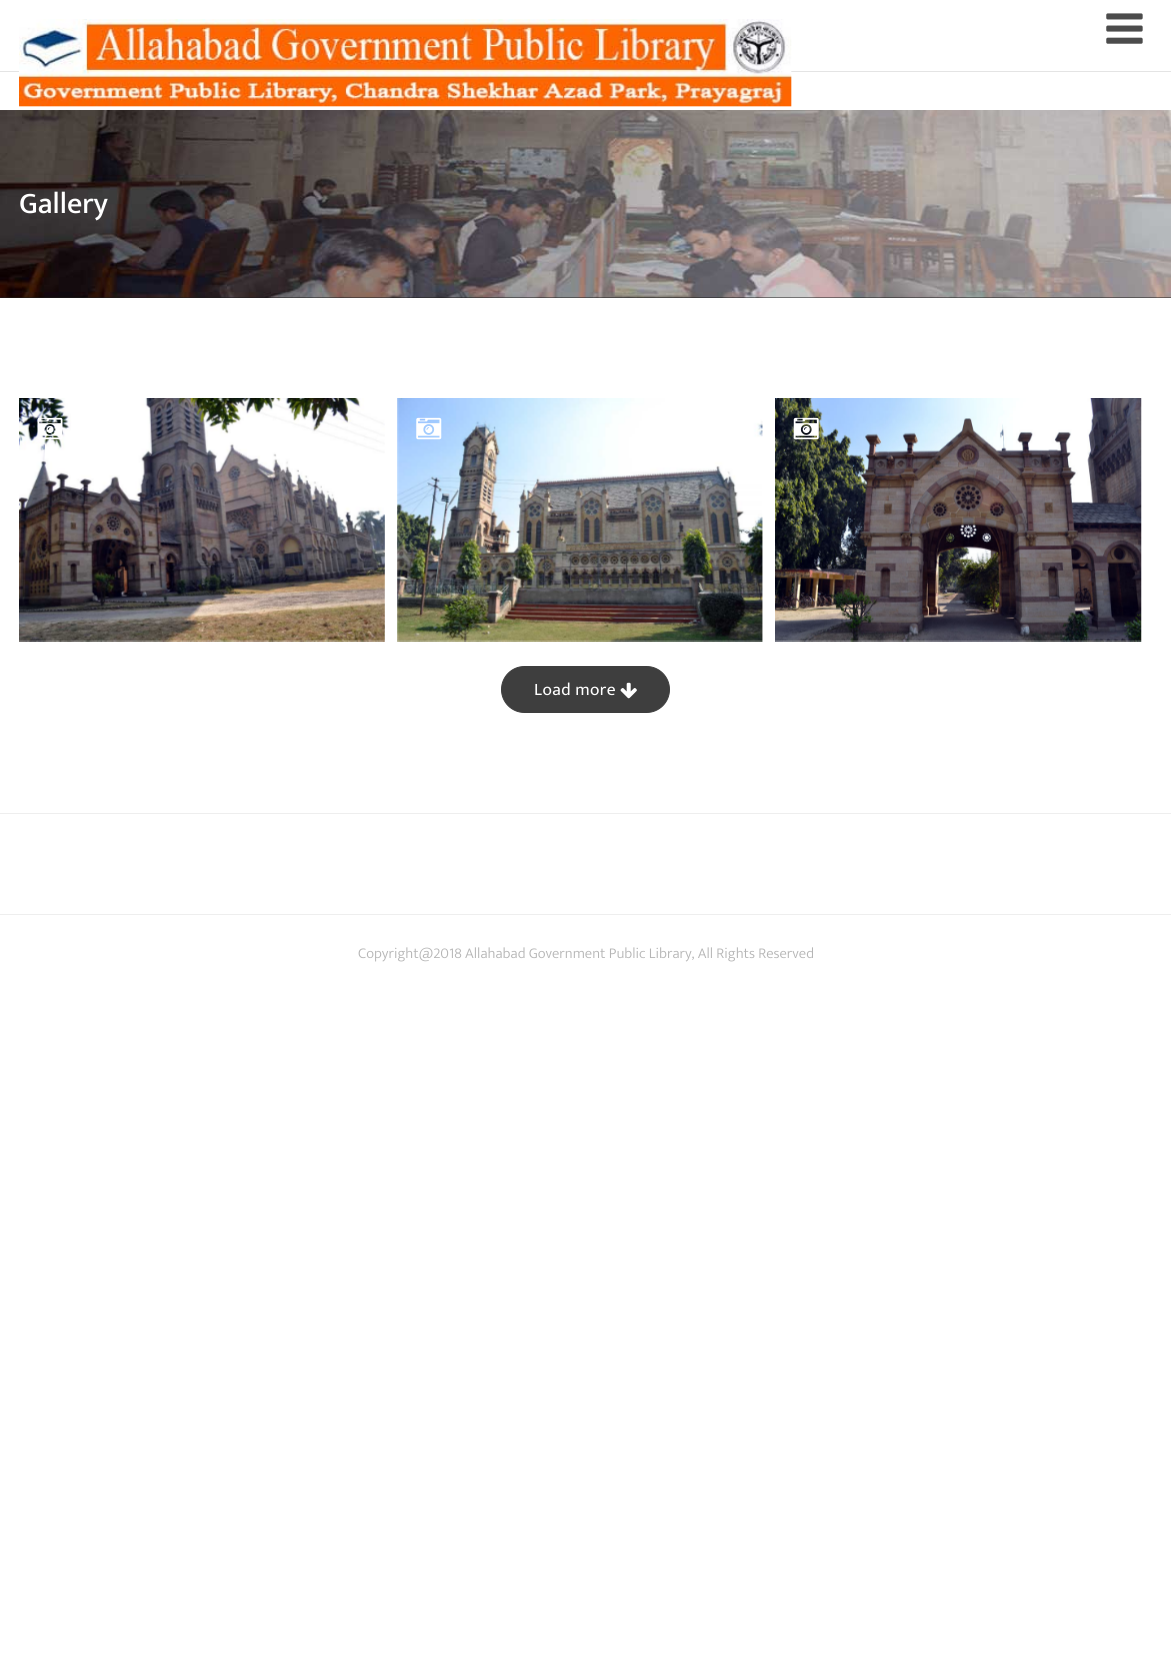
import math
import cairo

surface = cairo.ImageSurface(cairo.FORMAT_RGB24, 1171, 1657)
ctx = cairo.Context(surface)
options = cairo.FontOptions()
options.set_hint_metrics(cairo.HINT_METRICS_OFF)
options.set_hint_style(cairo.HINT_STYLE_NONE)
ctx.set_font_options(options)
ctx.set_miter_limit(4)


def spaced_text(x, y, s, letter, word):
    ctx.move_to(x, y)
    for ch in s:
        ctx.show_text(ch)
        ctx.rel_move_to(letter + word * (ch == ' '), 0)


def round_rect(x, y, w, h, r):
    ctx.new_sub_path()
    for i, (u, v) in enumerate([(x + w - r, y + h - r), (x + r, y + h - r), (x + r, y + r), (x + w - r, y + r)]):
        ctx.arc(u, v, r, i * math.pi / 2, (i + 1) * math.pi / 2)
    ctx.close_path()


def picture(path, x, y, w, h):
    ctx.save()
    ctx.set_source_surface(cairo.ImageSurface.create_from_png(path), x, y)
    ctx.rectangle(x, y, w, h)
    ctx.fill()
    ctx.restore()


ctx.set_source_rgb(1, 1, 1)
ctx.paint()
ctx.set_source_rgb(0.894, 0.894, 0.894)
ctx.rectangle(0, 71, 1171, 1)
ctx.fill()
picture("img1.png", 19, 19, 773, 88)
picture("img2.png", 1106, 13, 37, 31)
ctx.set_source_rgb(0.114, 0.114, 0.114)
ctx.rectangle(0, 297, 1171, 1)
ctx.fill()
picture("img3.png", 0, 110, 1171, 188)
ctx.select_font_face("Mukta Vaani Medium")
ctx.set_font_size(30)
ctx.set_source_rgb(1, 1, 1)
ctx.move_to(19, 213)
ctx.show_text("Gallery")
picture("img4.png", 19, 398, 366, 244)
picture("img5.png", 37, 417, 26, 23)
picture("img6.png", 397, 398, 366, 244)
picture("img7.png", 416, 417, 26, 23)
picture("img8.png", 775, 398, 367, 244)
picture("img9.png", 793, 417, 26, 23)
ctx.set_source_rgb(0.243, 0.243, 0.243)
round_rect(501.5, 666.5, 168, 46, 23)
ctx.fill_preserve()
ctx.set_line_width(1)
ctx.stroke()
ctx.select_font_face("Mukta Vaani")
ctx.set_font_size(17.5)
ctx.set_source_rgb(1, 1, 1)
spaced_text(534, 695, "Load more", 0.4, 0)
picture("img10.png", 620, 682, 17, 17)
ctx.set_source_rgb(0.933, 0.933, 0.933)
ctx.rectangle(0, 813, 1171, 1)
ctx.fill()
ctx.rectangle(0, 914, 1171, 1)
ctx.fill()
ctx.select_font_face("Mukta Vaani Light")
ctx.set_font_size(15)
ctx.set_source_rgb(0.71, 0.71, 0.71)
ctx.move_to(358, 958)
ctx.show_text("Copyright@2018 Allahabad Government Public Library, All Rights Reserved")
surface.write_to_png("page.png")
